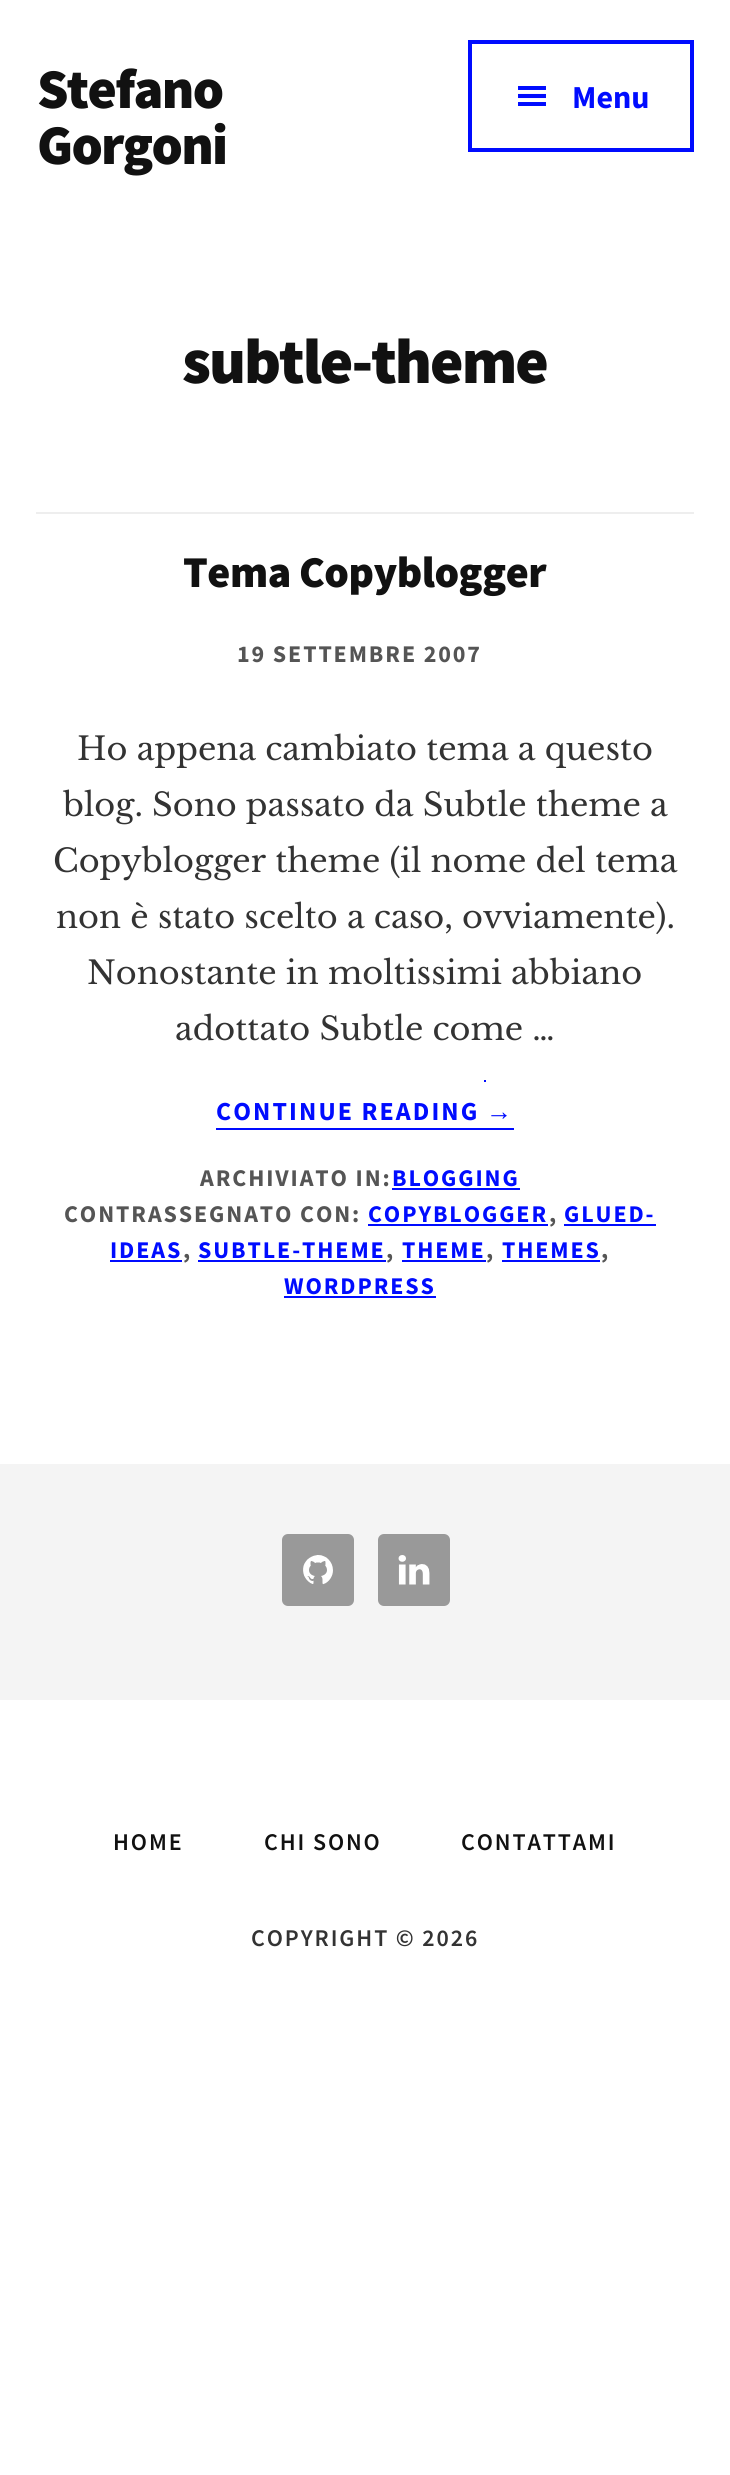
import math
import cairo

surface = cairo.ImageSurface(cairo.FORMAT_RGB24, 730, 2475)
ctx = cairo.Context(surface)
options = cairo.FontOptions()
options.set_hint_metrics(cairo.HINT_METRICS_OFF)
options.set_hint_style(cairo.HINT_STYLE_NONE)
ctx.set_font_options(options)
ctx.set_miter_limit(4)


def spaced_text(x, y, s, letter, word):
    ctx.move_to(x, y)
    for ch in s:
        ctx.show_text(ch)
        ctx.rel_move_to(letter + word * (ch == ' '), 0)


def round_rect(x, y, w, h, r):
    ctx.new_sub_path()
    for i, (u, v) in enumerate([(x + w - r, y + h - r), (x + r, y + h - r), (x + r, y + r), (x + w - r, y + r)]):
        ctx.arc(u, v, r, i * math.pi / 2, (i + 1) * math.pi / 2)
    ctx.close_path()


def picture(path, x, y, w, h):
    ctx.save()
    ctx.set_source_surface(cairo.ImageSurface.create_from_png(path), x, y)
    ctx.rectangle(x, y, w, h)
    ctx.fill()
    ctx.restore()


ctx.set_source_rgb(1, 1, 1)
ctx.paint()
ctx.select_font_face("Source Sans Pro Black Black")
ctx.set_font_size(56)
ctx.set_source_rgb(0.067, 0.067, 0.067)
spaced_text(37, 108, "Stefano", -1.75, 0)
spaced_text(37, 164, "Gorgoni", -1.75, 0)
ctx.rectangle(470, 42, 222, 108)
ctx.set_source_rgb(0, 0.047, 1)
ctx.set_line_width(4)
ctx.stroke()
picture("img1.png", 518, 86, 28, 20)
ctx.select_font_face("Source Sans Pro", cairo.FONT_SLANT_NORMAL, cairo.FONT_WEIGHT_BOLD)
ctx.set_font_size(32)
ctx.move_to(572, 108)
ctx.show_text("Menu")
ctx.set_source_rgb(0.933, 0.933, 0.933)
ctx.rectangle(36, 512, 658, 2)
ctx.fill()
ctx.select_font_face("Source Sans Pro Black Black")
ctx.set_font_size(64)
ctx.set_source_rgb(0.067, 0.067, 0.067)
spaced_text(182, 383, "subtle-theme", -2, 0)
ctx.set_font_size(44)
spaced_text(183, 587, "Tema Copyblogger", -0.5, 0)
ctx.select_font_face("Source Sans Pro", cairo.FONT_SLANT_NORMAL, cairo.FONT_WEIGHT_BOLD)
ctx.set_font_size(24)
ctx.set_source_rgb(0.333, 0.333, 0.333)
spaced_text(237, 662, "19 SETTEMBRE 2007", 1.9, 0)
ctx.select_font_face("Libre Baskerville")
ctx.set_font_size(32)
ctx.set_source_rgb(0.2, 0.2, 0.2)
ctx.move_to(77, 760)
ctx.show_text("Ho appena cambiato tema a questo")
ctx.move_to(63, 816)
ctx.show_text("blog. Sono passato da Subtle theme a")
ctx.move_to(53, 872)
ctx.show_text("Copyblogger theme (il nome del tema")
ctx.move_to(56, 928)
ctx.show_text("non è stato scelto a caso, ovviamente).")
ctx.move_to(87, 984)
ctx.show_text("Nonostante in moltissimi abbiano")
ctx.move_to(175, 1040)
ctx.show_text("adottato Subtle come …")
ctx.select_font_face("Source Sans Pro", cairo.FONT_SLANT_NORMAL, cairo.FONT_WEIGHT_BOLD)
ctx.set_font_size(26)
ctx.set_source_rgb(0, 0.047, 1)
spaced_text(216, 1120, "CONTINUE READING", 2.1, 0)
ctx.rectangle(484, 1080, 2, 2)
ctx.fill()
ctx.select_font_face("Liberation Sans", cairo.FONT_SLANT_NORMAL, cairo.FONT_WEIGHT_BOLD)
spaced_text(486, 1120, "→", 2.1, 0)
ctx.rectangle(216, 1128, 298, 2)
ctx.fill()
ctx.select_font_face("Source Sans Pro", cairo.FONT_SLANT_NORMAL, cairo.FONT_WEIGHT_BOLD)
ctx.set_font_size(24)
ctx.set_source_rgb(0.333, 0.333, 0.333)
spaced_text(200, 1186, "ARCHIVIATO IN:", 1.9, 0)
ctx.set_source_rgb(0, 0.047, 1)
spaced_text(392, 1186, "BLOGGING", 1.9, 0)
ctx.rectangle(392, 1188, 128, 2)
ctx.fill()
ctx.set_source_rgb(0.333, 0.333, 0.333)
spaced_text(64, 1222, "CONTRASSEGNATO CON:", 1.9, 0)
ctx.set_source_rgb(0, 0.047, 1)
spaced_text(368, 1222, "COPYBLOGGER", 1.9, 0)
ctx.rectangle(368, 1224, 180, 2)
ctx.fill()
ctx.set_source_rgb(0.333, 0.333, 0.333)
spaced_text(549, 1222, ",", 1.9, 0)
ctx.set_source_rgb(0, 0.047, 1)
spaced_text(564, 1222, "GLUED-", 1.9, 0)
ctx.rectangle(564, 1224, 92, 2)
ctx.fill()
spaced_text(110, 1258, "IDEAS", 1.9, 0)
ctx.rectangle(110, 1260, 72, 2)
ctx.fill()
ctx.set_source_rgb(0.333, 0.333, 0.333)
spaced_text(183, 1258, ",", 1.9, 0)
ctx.set_source_rgb(0, 0.047, 1)
spaced_text(198, 1258, "SUBTLE-THEME", 1.9, 0)
ctx.rectangle(198, 1260, 188, 2)
ctx.fill()
ctx.set_source_rgb(0.333, 0.333, 0.333)
spaced_text(386, 1258, ",", 1.9, 0)
ctx.set_source_rgb(0, 0.047, 1)
spaced_text(402, 1258, "THEME", 1.9, 0)
ctx.rectangle(402, 1260, 84, 2)
ctx.fill()
ctx.set_source_rgb(0.333, 0.333, 0.333)
spaced_text(486, 1258, ",", 1.9, 0)
ctx.set_source_rgb(0, 0.047, 1)
spaced_text(502, 1258, "THEMES", 1.9, 0)
ctx.rectangle(502, 1260, 98, 2)
ctx.fill()
ctx.set_source_rgb(0.333, 0.333, 0.333)
spaced_text(601, 1258, ",", 1.9, 0)
ctx.set_source_rgb(0, 0.047, 1)
spaced_text(284, 1294, "WORDPRESS", 1.9, 0)
ctx.rectangle(284, 1296, 152, 2)
ctx.fill()
ctx.set_source_rgb(0.957, 0.957, 0.957)
ctx.rectangle(0, 1464, 730, 236)
ctx.fill()
ctx.set_source_rgb(0.6, 0.6, 0.6)
round_rect(282, 1534, 72, 72, 6)
ctx.fill()
picture("img2.png", 303, 1555, 30, 30)
round_rect(378, 1534, 72, 72, 6)
ctx.fill()
picture("img3.png", 398, 1555, 32, 30)
ctx.select_font_face("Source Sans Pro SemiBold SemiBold")
ctx.set_source_rgb(0.067, 0.067, 0.067)
spaced_text(113, 1850, "HOME", 1.9, 0)
spaced_text(264, 1850, "CHI SONO", 1.9, 0)
spaced_text(461, 1850, "CONTATTAMI", 1.9, 0)
ctx.set_source_rgb(0.2, 0.2, 0.2)
spaced_text(251, 1946, "COPYRIGHT © 2026", 1.9, 0)
surface.write_to_png("page.png")
